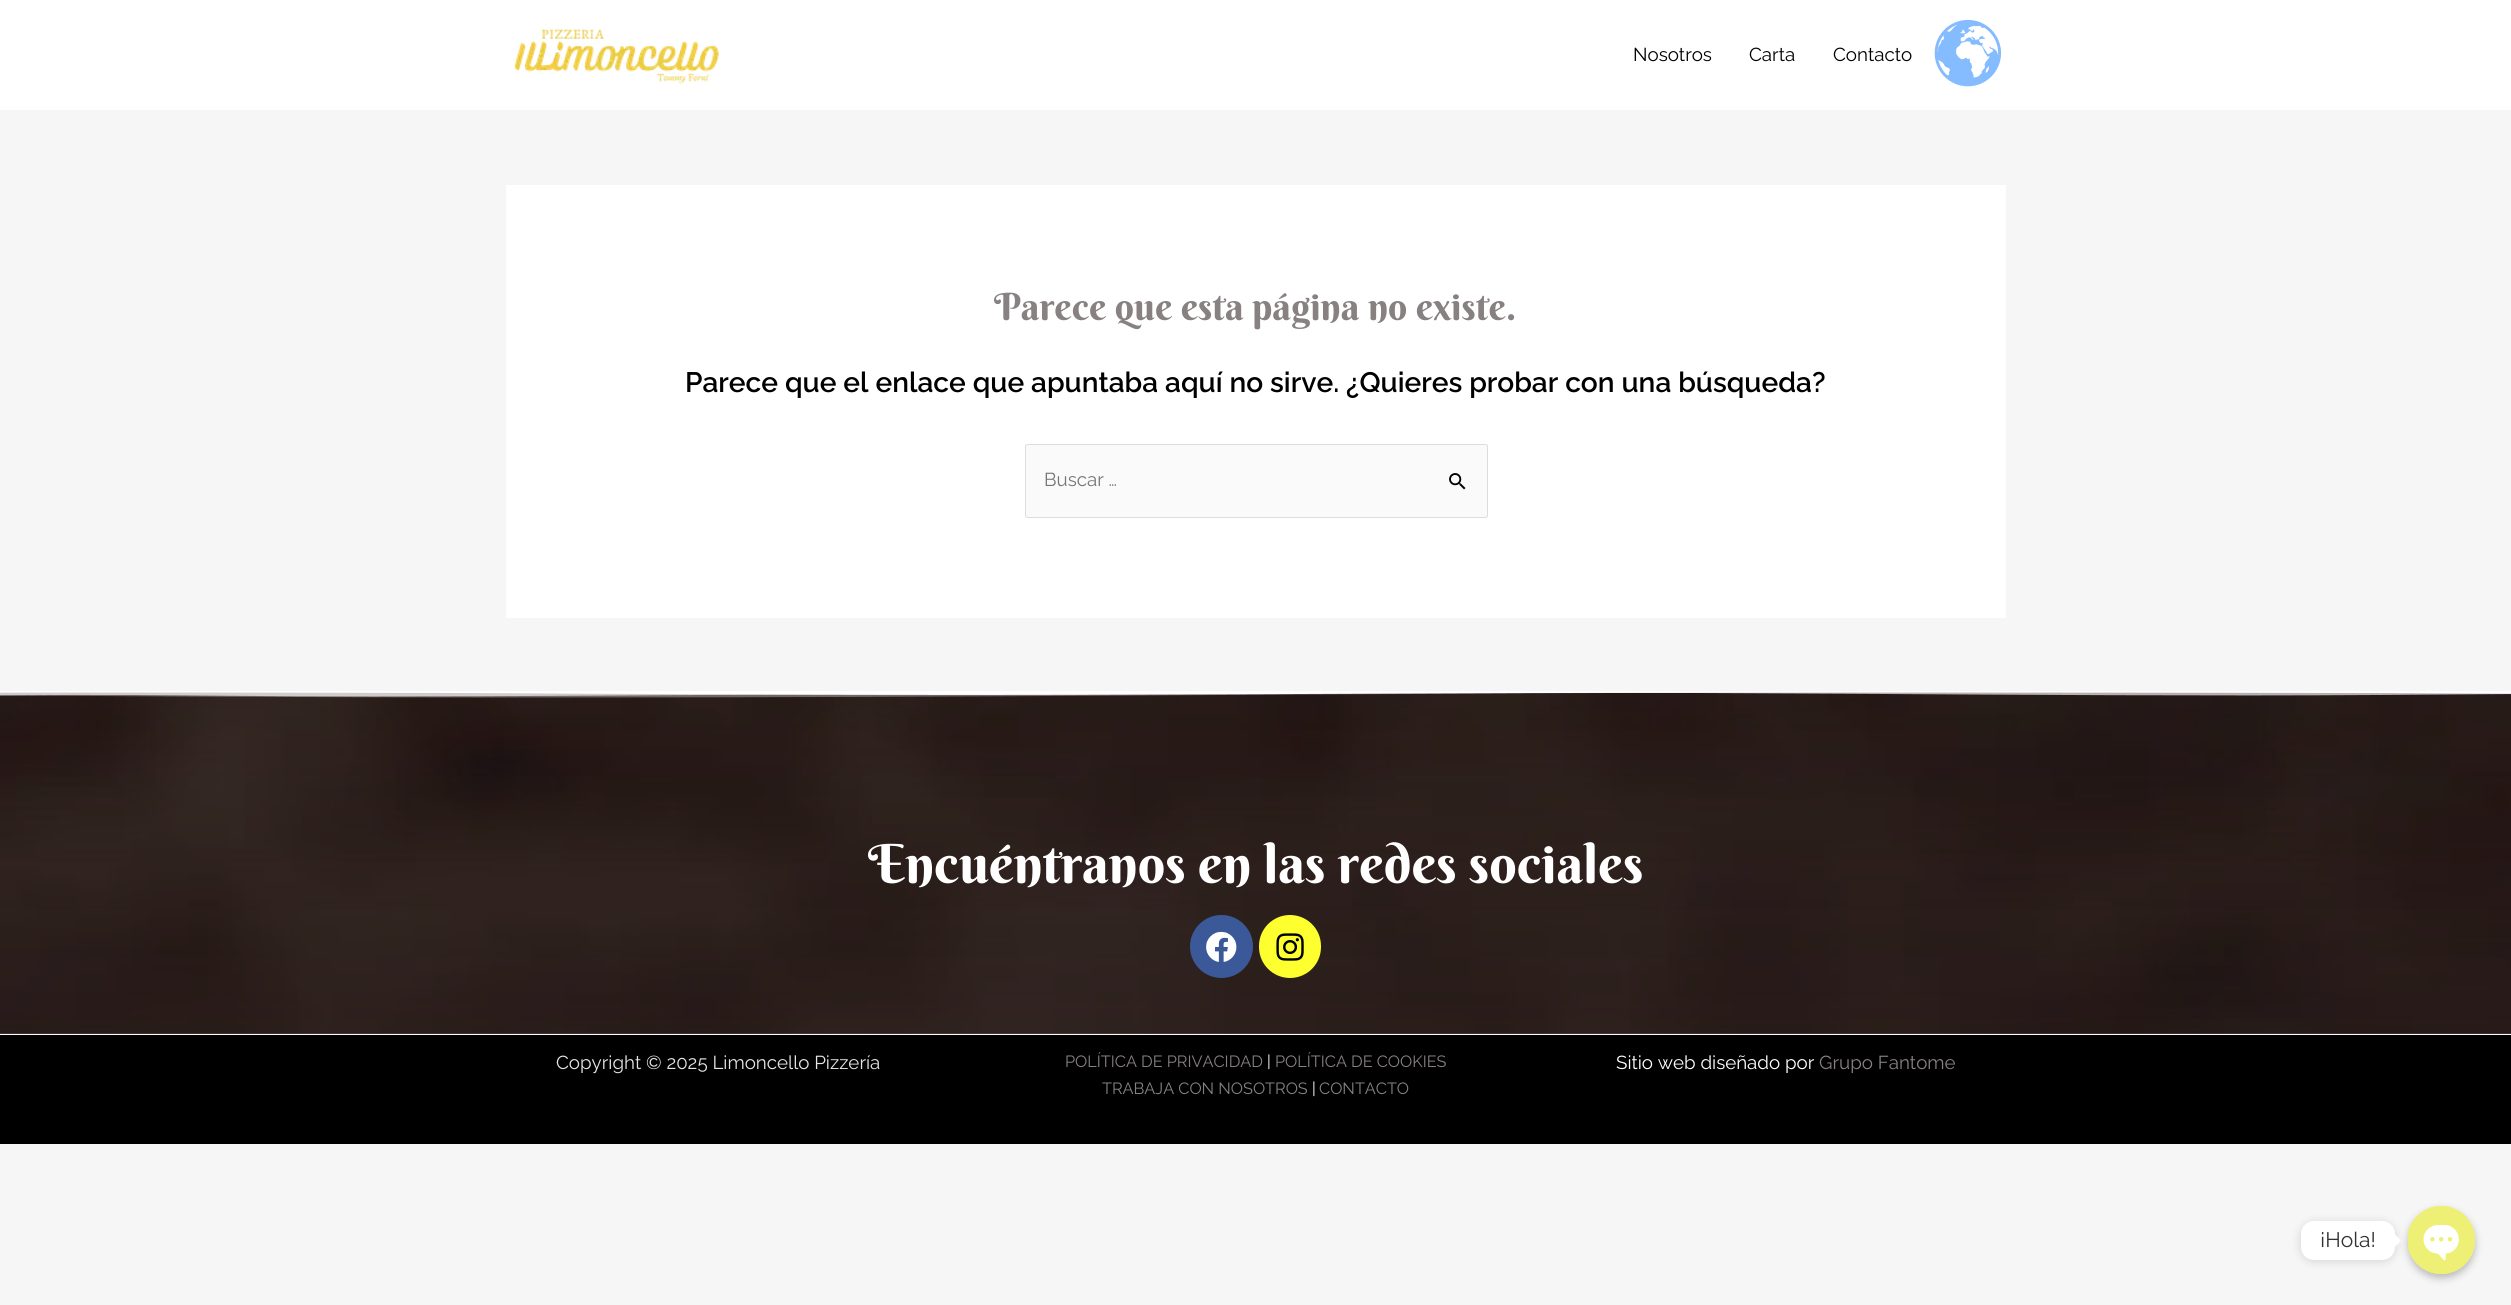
import math
import cairo

surface = cairo.ImageSurface(cairo.FORMAT_RGB24, 2511, 1305)
ctx = cairo.Context(surface)
options = cairo.FontOptions()
options.set_hint_metrics(cairo.HINT_METRICS_OFF)
options.set_hint_style(cairo.HINT_STYLE_NONE)
ctx.set_font_options(options)
ctx.set_miter_limit(4)


def round_rect(x, y, w, h, r):
    ctx.new_sub_path()
    for i, (u, v) in enumerate([(x + w - r, y + h - r), (x + r, y + h - r), (x + r, y + r), (x + w - r, y + r)]):
        ctx.arc(u, v, r, i * math.pi / 2, (i + 1) * math.pi / 2)
    ctx.close_path()


def shadow(x, y, w, h, r, blur, alpha):
    ctx.push_group_with_content(cairo.CONTENT_ALPHA)
    ctx.set_operator(cairo.OPERATOR_SOURCE)
    for i in range(15, -16, -2):
        e = blur * i / 6
        if min(w, h) + 2 * e > 0:
            ctx.set_source_rgba(0, 0, 0, alpha * math.erfc((i - 1) / 8.5) / 2)
            round_rect(x - e, y - e, w + 2 * e, h + 2 * e, max(0, min(r + e + blur * .6, min(w, h) / 2 + e)))
            ctx.fill()
    ctx.mask(ctx.pop_group())


def picture(path, x, y, w, h):
    ctx.save()
    ctx.set_source_surface(cairo.ImageSurface.create_from_png(path), x, y)
    ctx.rectangle(x, y, w, h)
    ctx.fill()
    ctx.restore()


ctx.set_source_rgb(0.961, 0.961, 0.961)
ctx.paint()
ctx.set_source_rgb(1, 1, 1)
ctx.rectangle(0, 0, 2511, 110)
ctx.fill()
picture("img1.png", 514, 28, 205, 56)
ctx.select_font_face("Raleway")
ctx.set_font_size(18.75)
ctx.set_source_rgb(0, 0, 0)
ctx.move_to(1633, 61)
ctx.show_text("Nosotros")
ctx.move_to(1749, 61)
ctx.show_text("Carta")
ctx.move_to(1833, 61)
ctx.show_text("Contacto")
picture("img2.png", 1934, 19, 68, 68)
ctx.set_source_rgb(1, 1, 1)
ctx.rectangle(506, 185, 1500, 433)
ctx.fill()
ctx.select_font_face("Berkshire Swash")
ctx.set_font_size(37.5)
ctx.set_source_rgb(0.529, 0.506, 0.506)
ctx.move_to(994, 320)
ctx.show_text("Parece que esta página no existe.")
ctx.select_font_face("Raleway SemiBold")
ctx.set_font_size(28.1)
ctx.set_source_rgb(0, 0, 0)
ctx.move_to(685, 392)
ctx.show_text("Parece que el enlace que apuntaba aquí no sirve. ¿Quieres probar con una búsqueda?")
ctx.set_source_rgb(0.98, 0.98, 0.98)
round_rect(1025.5, 444.5, 462, 73, 2)
ctx.fill_preserve()
ctx.set_source_rgb(0.867, 0.867, 0.867)
ctx.set_line_width(1)
ctx.stroke()
ctx.select_font_face("Raleway")
ctx.set_font_size(18.75)
ctx.set_source_rgb(0.459, 0.459, 0.459)
ctx.move_to(1044, 486)
ctx.show_text("Buscar …")
picture("img3.png", 1449, 473, 17, 17)
picture("img4.png", 0, 692, 2511, 342)
gradient = cairo.LinearGradient(1256, 692, 1256, 1034)
gradient.add_color_stop_rgba(0, 0, 0, 0, 0.36)
gradient.add_color_stop_rgba(1, 0.047, 0.02, 0.027, 0.52)
ctx.set_source(gradient)
ctx.rectangle(0, 693, 2511, 341)
ctx.fill()
picture("img5.png", 0, 691, 2511, 7)
ctx.select_font_face("Berkshire Swash")
ctx.set_font_size(53.75)
ctx.set_source_rgb(1, 1, 1)
ctx.move_to(868, 883)
ctx.show_text("Encuéntranos en las redes sociales")
ctx.set_source_rgb(0.231, 0.349, 0.596)
ctx.new_path()
ctx.arc(1221.5, 946.5, 31.5, 0, 2 * math.pi)
ctx.fill()
picture("img6.png", 1206, 931, 31, 31)
ctx.set_source_rgb(0.996, 1, 0.18)
round_rect(1259, 915, 62, 63, 31)
ctx.fill()
picture("img7.png", 1276, 933, 28, 28)
ctx.set_source_rgb(0, 0, 0)
ctx.rectangle(0, 1035, 2511, 109)
ctx.fill()
ctx.set_source_rgb(1, 1, 1)
ctx.rectangle(0, 1034, 2511, 1)
ctx.fill()
ctx.select_font_face("Raleway")
ctx.set_font_size(18.75)
ctx.set_source_rgb(0.898, 0.898, 0.898)
ctx.move_to(556, 1069)
ctx.show_text("Copyright © 2025 Limoncello Pizzería")
ctx.set_font_size(16.25)
ctx.set_source_rgb(0.529, 0.506, 0.506)
ctx.move_to(1065, 1067)
ctx.show_text("POLÍTICA DE PRIVACIDAD")
ctx.set_source_rgb(1, 1, 1)
ctx.move_to(1267, 1067)
ctx.show_text("|")
ctx.set_source_rgb(0.529, 0.506, 0.506)
ctx.move_to(1275, 1067)
ctx.show_text("POLÍTICA DE COOKIES")
ctx.move_to(1102, 1094)
ctx.show_text("TRABAJA CON NOSOTROS")
ctx.set_source_rgb(1, 1, 1)
ctx.move_to(1312, 1094)
ctx.show_text("|")
ctx.set_source_rgb(0.529, 0.506, 0.506)
ctx.move_to(1319, 1094)
ctx.show_text("CONTACTO")
ctx.set_font_size(18.75)
ctx.set_source_rgb(1, 1, 1)
ctx.move_to(1616, 1069)
ctx.show_text("Sitio web diseñado por")
ctx.set_source_rgb(0.529, 0.506, 0.506)
ctx.move_to(1819, 1069)
ctx.show_text("Grupo Fantome")
ctx.set_source_rgb(0, 0, 0)
shadow(2301, 1223, 94, 38, 13, 5, 0.15)
ctx.set_source_rgb(1, 1, 1)
round_rect(2301, 1221, 94, 39, 13)
ctx.fill()
ctx.set_font_size(21)
ctx.set_source_rgb(0.2, 0.2, 0.2)
ctx.move_to(2320, 1247)
ctx.show_text("¡Hola!")
ctx.set_source_rgb(1, 1, 1)
ctx.new_path()
ctx.move_to(2395, 1247)
ctx.line_to(2395, 1234.5)
ctx.line_to(2401, 1240.5)
ctx.close_path()
ctx.fill()
ctx.set_source_rgb(0, 0, 0)
shadow(2408, 1210, 67, 68, 33.5, 4, 0.25)
ctx.set_source_rgb(0.933, 0.941, 0.459)
round_rect(2408, 1206, 67, 68, 33.5)
ctx.fill()
picture("img8.png", 2408, 1206, 67, 68)
surface.write_to_png("page.png")
